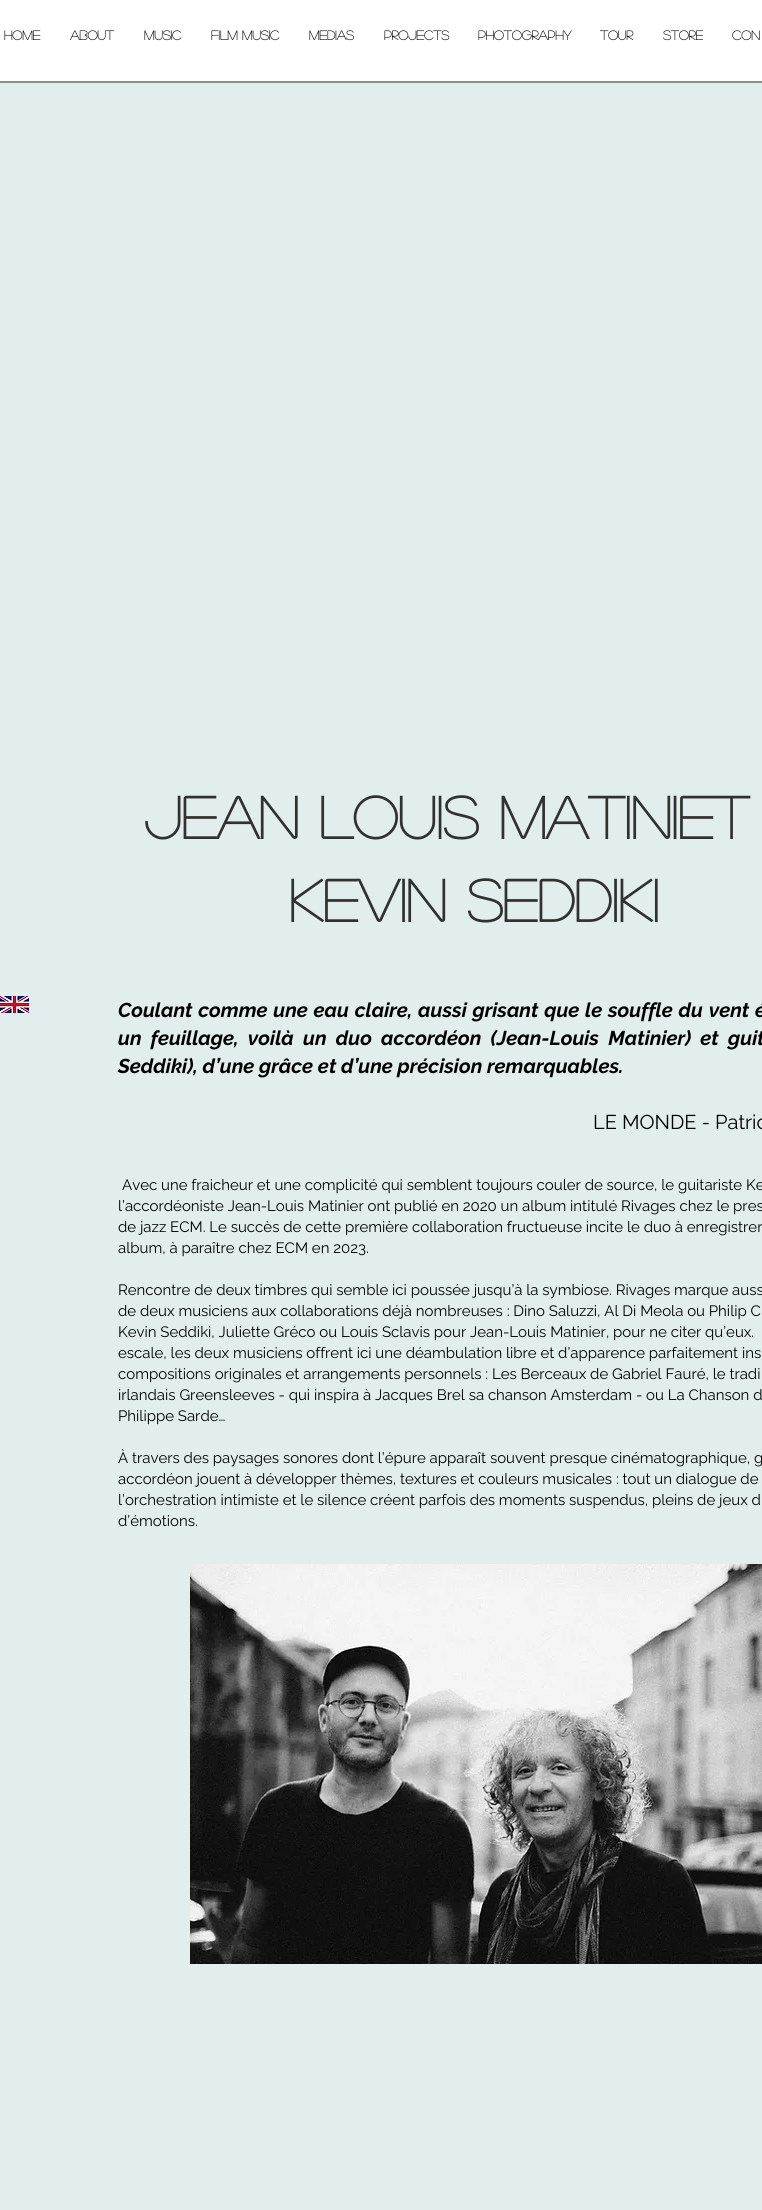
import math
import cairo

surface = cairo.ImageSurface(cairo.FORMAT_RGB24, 762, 2210)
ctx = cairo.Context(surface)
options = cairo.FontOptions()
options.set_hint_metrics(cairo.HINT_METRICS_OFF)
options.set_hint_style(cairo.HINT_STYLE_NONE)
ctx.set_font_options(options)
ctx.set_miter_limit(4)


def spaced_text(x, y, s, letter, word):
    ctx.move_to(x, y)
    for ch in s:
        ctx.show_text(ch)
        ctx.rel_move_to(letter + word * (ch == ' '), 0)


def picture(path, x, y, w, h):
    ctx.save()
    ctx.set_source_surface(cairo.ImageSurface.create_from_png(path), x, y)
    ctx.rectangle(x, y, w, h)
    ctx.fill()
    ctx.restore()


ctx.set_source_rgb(0.886, 0.933, 0.933)
ctx.paint()
ctx.set_source_rgb(0.541, 0.565, 0.565)
ctx.rectangle(0, 81, 762, 2)
ctx.fill()
ctx.set_source_rgb(1, 1, 1)
ctx.rectangle(0, 0, 762, 81)
ctx.fill()
ctx.select_font_face("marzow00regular", cairo.FONT_SLANT_NORMAL, cairo.FONT_WEIGHT_BOLD)
ctx.set_font_size(13)
ctx.set_source_rgb(0, 0, 0)
ctx.move_to(4, 40)
ctx.show_text("HOME")
ctx.move_to(70, 40)
ctx.show_text("ABOUT")
ctx.move_to(144, 40)
ctx.show_text("MUSIC")
ctx.move_to(211, 40)
ctx.show_text("Film Music")
ctx.move_to(309, 40)
ctx.show_text("Medias")
ctx.move_to(384, 40)
ctx.show_text("Projects")
ctx.move_to(478, 40)
ctx.show_text("Photography")
ctx.move_to(600, 40)
ctx.show_text("TOUR")
ctx.move_to(663, 40)
ctx.show_text("Store")
ctx.move_to(732, 40)
ctx.show_text("CON")
ctx.set_font_size(59)
ctx.set_source_rgb(0.192, 0.192, 0.192)
ctx.move_to(144, 839)
ctx.show_text("JEAN LOUIS MATINIET")
ctx.move_to(289, 922)
ctx.show_text("KEVIN SEDDIKI")
picture("img1.png", 0, 996, 29, 17)
ctx.select_font_face("Raleway", cairo.FONT_SLANT_ITALIC, cairo.FONT_WEIGHT_BOLD)
ctx.set_font_size(20)
ctx.set_source_rgb(0, 0, 0)
spaced_text(118, 1017, "Coulant comme une eau claire, aussi grisant que le souffle du vent é", 0, 1)
spaced_text(118, 1045, "un feuillage, voilà un duo accordéon (Jean-Louis Matinier) et guit", 0, 4.5)
ctx.move_to(118, 1073)
ctx.show_text("Seddiki), d’une grâce et d’une précision remarquables.")
ctx.select_font_face("Raleway")
ctx.move_to(593, 1129)
ctx.show_text("LE MONDE - Patric")
ctx.set_font_size(15)
ctx.move_to(122, 1190)
ctx.show_text("Avec une fraicheur et une complicité qui semblent toujours couler de source, le guitariste Ke")
ctx.move_to(118, 1211)
ctx.show_text("l’accordéoniste Jean-Louis Matinier ont publié en 2020 un album intitulé Rivages chez le pres")
ctx.move_to(118, 1232)
ctx.show_text("de jazz ECM. Le succès de cette première collaboration fructueuse incite le duo à enregistrer")
ctx.move_to(118, 1253)
ctx.show_text("album, à paraître chez ECM en 2023.")
ctx.move_to(118, 1295)
ctx.show_text("Rencontre de deux timbres qui semble ici poussée jusqu’à la symbiose. Rivages marque auss")
ctx.move_to(118, 1316)
ctx.show_text("de deux musiciens aux collaborations déjà nombreuses : Dino Saluzzi, Al Di Meola ou Philip C")
ctx.move_to(118, 1337)
ctx.show_text("Kevin Seddiki, Juliette Gréco ou Louis Sclavis pour Jean-Louis Matinier, pour ne citer qu’eux.")
ctx.move_to(118, 1358)
ctx.show_text("escale, les deux musiciens offrent ici une déambulation libre et d’apparence parfaitement ins")
ctx.move_to(118, 1379)
ctx.show_text("compositions originales et arrangements personnels : Les Berceaux de Gabriel Fauré, le tradi")
ctx.move_to(118, 1400)
ctx.show_text("irlandais Greensleeves - qui inspira à Jacques Brel sa chanson Amsterdam - ou La Chanson d")
ctx.move_to(118, 1421)
ctx.show_text("Philippe Sarde…")
ctx.move_to(118, 1463)
ctx.show_text("À travers des paysages sonores dont l’épure apparaît souvent presque cinématographique, g")
ctx.move_to(118, 1484)
ctx.show_text("accordéon jouent à développer thèmes, textures et couleurs musicales : tout un dialogue de")
ctx.move_to(118, 1505)
ctx.show_text("l’orchestration intimiste et le silence créent parfois des moments suspendus, pleins de jeux d")
ctx.move_to(118, 1526)
ctx.show_text("d’émotions.")
picture("img2.png", 190, 1564, 572, 400)
surface.write_to_png("page.png")
